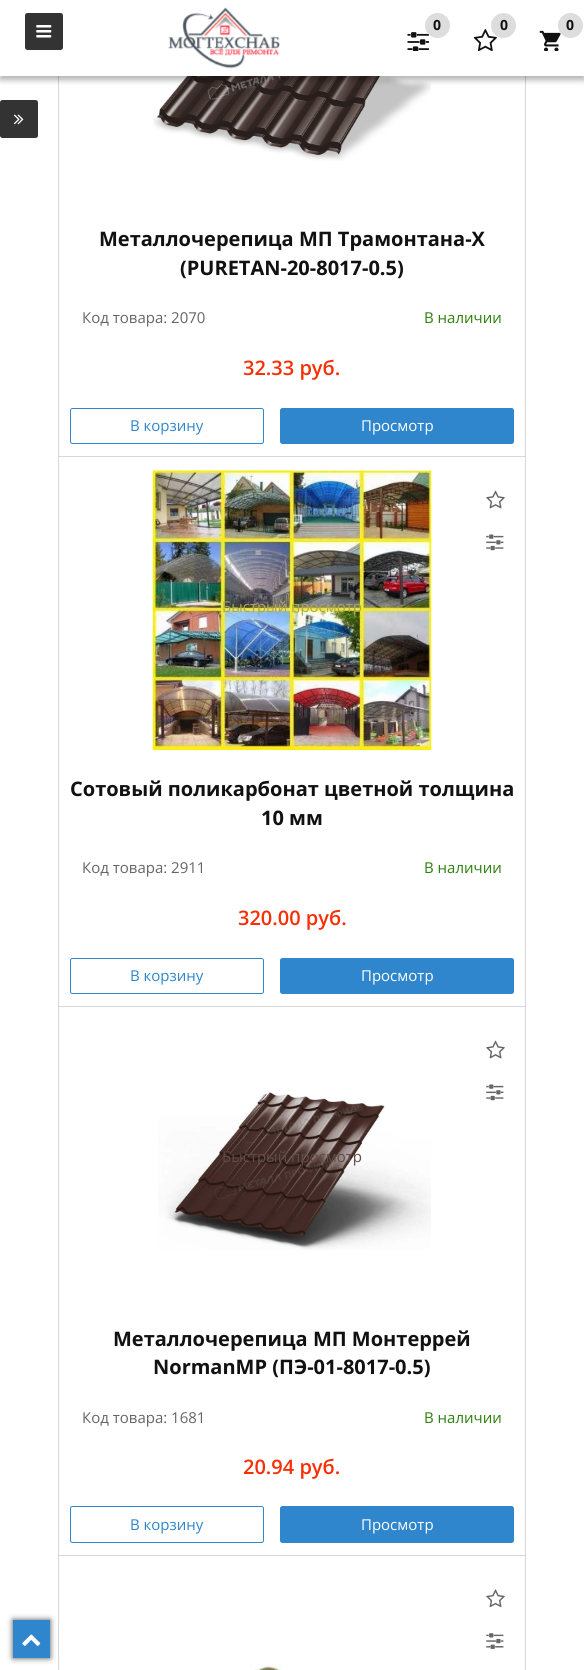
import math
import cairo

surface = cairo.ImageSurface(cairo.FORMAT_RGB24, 584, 1670)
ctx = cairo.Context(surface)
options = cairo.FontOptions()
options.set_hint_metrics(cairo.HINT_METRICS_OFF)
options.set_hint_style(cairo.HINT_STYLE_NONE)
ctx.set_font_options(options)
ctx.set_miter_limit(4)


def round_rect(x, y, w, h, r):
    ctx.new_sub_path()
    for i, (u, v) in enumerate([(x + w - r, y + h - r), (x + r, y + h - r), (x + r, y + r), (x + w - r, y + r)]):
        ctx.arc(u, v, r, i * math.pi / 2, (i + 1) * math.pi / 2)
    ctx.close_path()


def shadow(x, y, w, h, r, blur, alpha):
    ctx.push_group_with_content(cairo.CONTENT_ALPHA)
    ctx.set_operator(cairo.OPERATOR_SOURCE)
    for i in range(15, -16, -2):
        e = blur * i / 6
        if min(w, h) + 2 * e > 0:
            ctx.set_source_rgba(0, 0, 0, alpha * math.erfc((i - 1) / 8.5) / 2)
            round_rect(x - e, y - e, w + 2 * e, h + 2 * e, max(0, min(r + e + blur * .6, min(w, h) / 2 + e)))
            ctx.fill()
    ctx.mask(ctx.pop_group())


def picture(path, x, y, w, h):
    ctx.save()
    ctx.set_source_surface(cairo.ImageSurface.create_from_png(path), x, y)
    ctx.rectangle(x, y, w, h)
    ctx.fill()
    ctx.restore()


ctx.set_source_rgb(1, 1, 1)
ctx.paint()
ctx.rectangle(58.5, -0.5, 467, 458)
ctx.set_source_rgb(0.831, 0.847, 0.859)
ctx.set_line_width(1)
ctx.stroke()
picture("img7.png", 153, 76, 278, 85)
ctx.set_source_rgb(0, 0, 0)
shadow(0, 4, 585, 76, 0, 3, 0.3)
ctx.set_source_rgb(1, 1, 1)
ctx.rectangle(0, 0, 584, 76)
ctx.fill()
ctx.set_source_rgb(0.2, 0.2, 0.2)
round_rect(25, 13, 38, 37, 2.5)
ctx.fill()
picture("img1.png", 36, 25, 16, 13)
picture("img2.png", 168, 7, 112, 62)
picture("img3.png", 407, 32, 22, 19)
ctx.set_source_rgb(0.867, 0.867, 0.867)
ctx.arc(437.5, 25.5, 12.5, 0, 2 * math.pi)
ctx.fill()
ctx.select_font_face("Open Sans", cairo.FONT_SLANT_NORMAL, cairo.FONT_WEIGHT_BOLD)
ctx.set_font_size(14)
ctx.set_source_rgb(0.067, 0.067, 0.067)
ctx.move_to(433, 30)
ctx.show_text("0")
picture("img4.png", 473, 29, 24, 22)
ctx.set_source_rgb(0.867, 0.867, 0.867)
ctx.arc(503.5, 25.5, 12.5, 0, 2 * math.pi)
ctx.fill()
ctx.set_source_rgb(0.067, 0.067, 0.067)
ctx.move_to(500, 30)
ctx.show_text("0")
picture("img5.png", 539, 30, 22, 21)
ctx.set_source_rgb(0.867, 0.867, 0.867)
ctx.arc(570.5, 25.5, 12.5, 0, 2 * math.pi)
ctx.fill()
ctx.set_source_rgb(0.067, 0.067, 0.067)
ctx.move_to(566, 30)
ctx.show_text("0")
ctx.set_source_rgb(0.2, 0.2, 0.2)
round_rect(0, 100, 38, 38, 2.5)
ctx.fill()
picture("img6.png", 13, 114, 11, 11)
ctx.set_font_size(20)
ctx.set_source_rgb(0.067, 0.067, 0.067)
ctx.move_to(99, 246)
ctx.show_text("Металлочерепица МП Трамонтана-X")
ctx.move_to(180, 275)
ctx.show_text("(PURETAN-20-8017-0.5)")
ctx.select_font_face("Open Sans")
ctx.set_font_size(15)
ctx.set_source_rgb(0.4, 0.4, 0.4)
ctx.move_to(82, 323)
ctx.show_text("Код товара: 2070")
ctx.set_source_rgb(0.18, 0.498, 0.051)
ctx.move_to(424, 323)
ctx.show_text("В наличии")
ctx.select_font_face("Open Sans SemiBold")
ctx.set_font_size(20)
ctx.set_source_rgb(0.965, 0.184, 0.02)
ctx.move_to(243, 375)
ctx.show_text("32.33 руб.")
round_rect(70.5, 408.5, 193, 35, 2)
ctx.set_source_rgb(0.184, 0.525, 0.8)
ctx.stroke()
ctx.select_font_face("Open Sans")
ctx.set_font_size(15)
ctx.move_to(130, 431)
ctx.show_text("В корзину")
round_rect(280, 408, 234, 36, 2.5)
ctx.fill()
ctx.set_source_rgb(1, 1, 1)
ctx.move_to(361, 431)
ctx.show_text("Просмотр")
ctx.rectangle(59, 457, 466, 1)
ctx.fill()
ctx.rectangle(58.5, 456.5, 467, 551)
ctx.set_source_rgb(0.831, 0.847, 0.859)
ctx.stroke()
picture("img8.png", 152, 470, 280, 281)
picture("img9.png", 486, 490, 19, 19)
picture("img10.png", 486, 534, 18, 17)
ctx.set_source_rgb(0.655, 0.655, 0.365)
ctx.move_to(222, 612)
ctx.show_text("Быстрый просмотр")
ctx.select_font_face("Open Sans", cairo.FONT_SLANT_NORMAL, cairo.FONT_WEIGHT_BOLD)
ctx.set_font_size(20)
ctx.set_source_rgb(0.067, 0.067, 0.067)
ctx.move_to(70, 796)
ctx.show_text("Сотовый поликарбонат цветной толщина")
ctx.move_to(261, 825)
ctx.show_text("10 мм")
ctx.select_font_face("Open Sans")
ctx.set_font_size(15)
ctx.set_source_rgb(0.4, 0.4, 0.4)
ctx.move_to(82, 873)
ctx.show_text("Код товара: 2911")
ctx.set_source_rgb(0.18, 0.498, 0.051)
ctx.move_to(424, 873)
ctx.show_text("В наличии")
ctx.select_font_face("Open Sans SemiBold")
ctx.set_font_size(20)
ctx.set_source_rgb(0.965, 0.184, 0.02)
ctx.move_to(238, 925)
ctx.show_text("320.00 руб.")
round_rect(70.5, 958.5, 193, 35, 2)
ctx.set_source_rgb(0.184, 0.525, 0.8)
ctx.stroke()
ctx.select_font_face("Open Sans")
ctx.set_font_size(15)
ctx.move_to(130, 981)
ctx.show_text("В корзину")
round_rect(280, 958, 234, 36, 2.5)
ctx.fill()
ctx.set_source_rgb(1, 1, 1)
ctx.move_to(361, 981)
ctx.show_text("Просмотр")
ctx.rectangle(59, 1007, 466, 1)
ctx.fill()
ctx.rectangle(58.5, 1006.5, 467, 549)
ctx.set_source_rgb(0.831, 0.847, 0.859)
ctx.stroke()
picture("img9.png", 486, 1040, 19, 19)
picture("img10.png", 486, 1084, 18, 17)
picture("img11.png", 158, 1092, 273, 158)
ctx.set_source_rgb(0.373, 0.294, 0.278)
ctx.move_to(222, 1162)
ctx.show_text("Быстрый просмотр")
ctx.select_font_face("Open Sans", cairo.FONT_SLANT_NORMAL, cairo.FONT_WEIGHT_BOLD)
ctx.set_font_size(20)
ctx.set_source_rgb(0.067, 0.067, 0.067)
ctx.move_to(113, 1346)
ctx.show_text("Металлочерепица МП Монтеррей")
ctx.move_to(153, 1374)
ctx.show_text("NormanMP (ПЭ-01-8017-0.5)")
ctx.select_font_face("Open Sans")
ctx.set_font_size(15)
ctx.set_source_rgb(0.4, 0.4, 0.4)
ctx.move_to(82, 1423)
ctx.show_text("Код товара: 1681")
ctx.set_source_rgb(0.18, 0.498, 0.051)
ctx.move_to(424, 1423)
ctx.show_text("В наличии")
ctx.select_font_face("Open Sans SemiBold")
ctx.set_font_size(20)
ctx.set_source_rgb(0.965, 0.184, 0.02)
ctx.move_to(243, 1474)
ctx.show_text("20.94 руб.")
round_rect(70.5, 1506.5, 193, 36, 2)
ctx.set_source_rgb(0.184, 0.525, 0.8)
ctx.stroke()
ctx.select_font_face("Open Sans")
ctx.set_font_size(15)
ctx.move_to(130, 1530)
ctx.show_text("В корзину")
round_rect(280, 1506, 234, 37, 2.5)
ctx.fill()
ctx.set_source_rgb(1, 1, 1)
ctx.move_to(361, 1530)
ctx.show_text("Просмотр")
ctx.rectangle(58.5, 1555.5, 467, 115)
ctx.set_source_rgb(0.831, 0.847, 0.859)
ctx.stroke()
picture("img12.png", 486, 1589, 19, 19)
picture("img13.png", 486, 1633, 18, 16)
picture("img14.png", 254, 1664, 28, 6)
ctx.set_source_rgb(0, 0, 0)
shadow(13, 1620, 37, 38, 0, 3, 0.7)
ctx.set_source_rgb(0.184, 0.525, 0.8)
ctx.rectangle(13, 1620, 37, 38)
ctx.fill()
picture("img15.png", 22, 1634, 19, 12)
surface.write_to_png("page.png")
